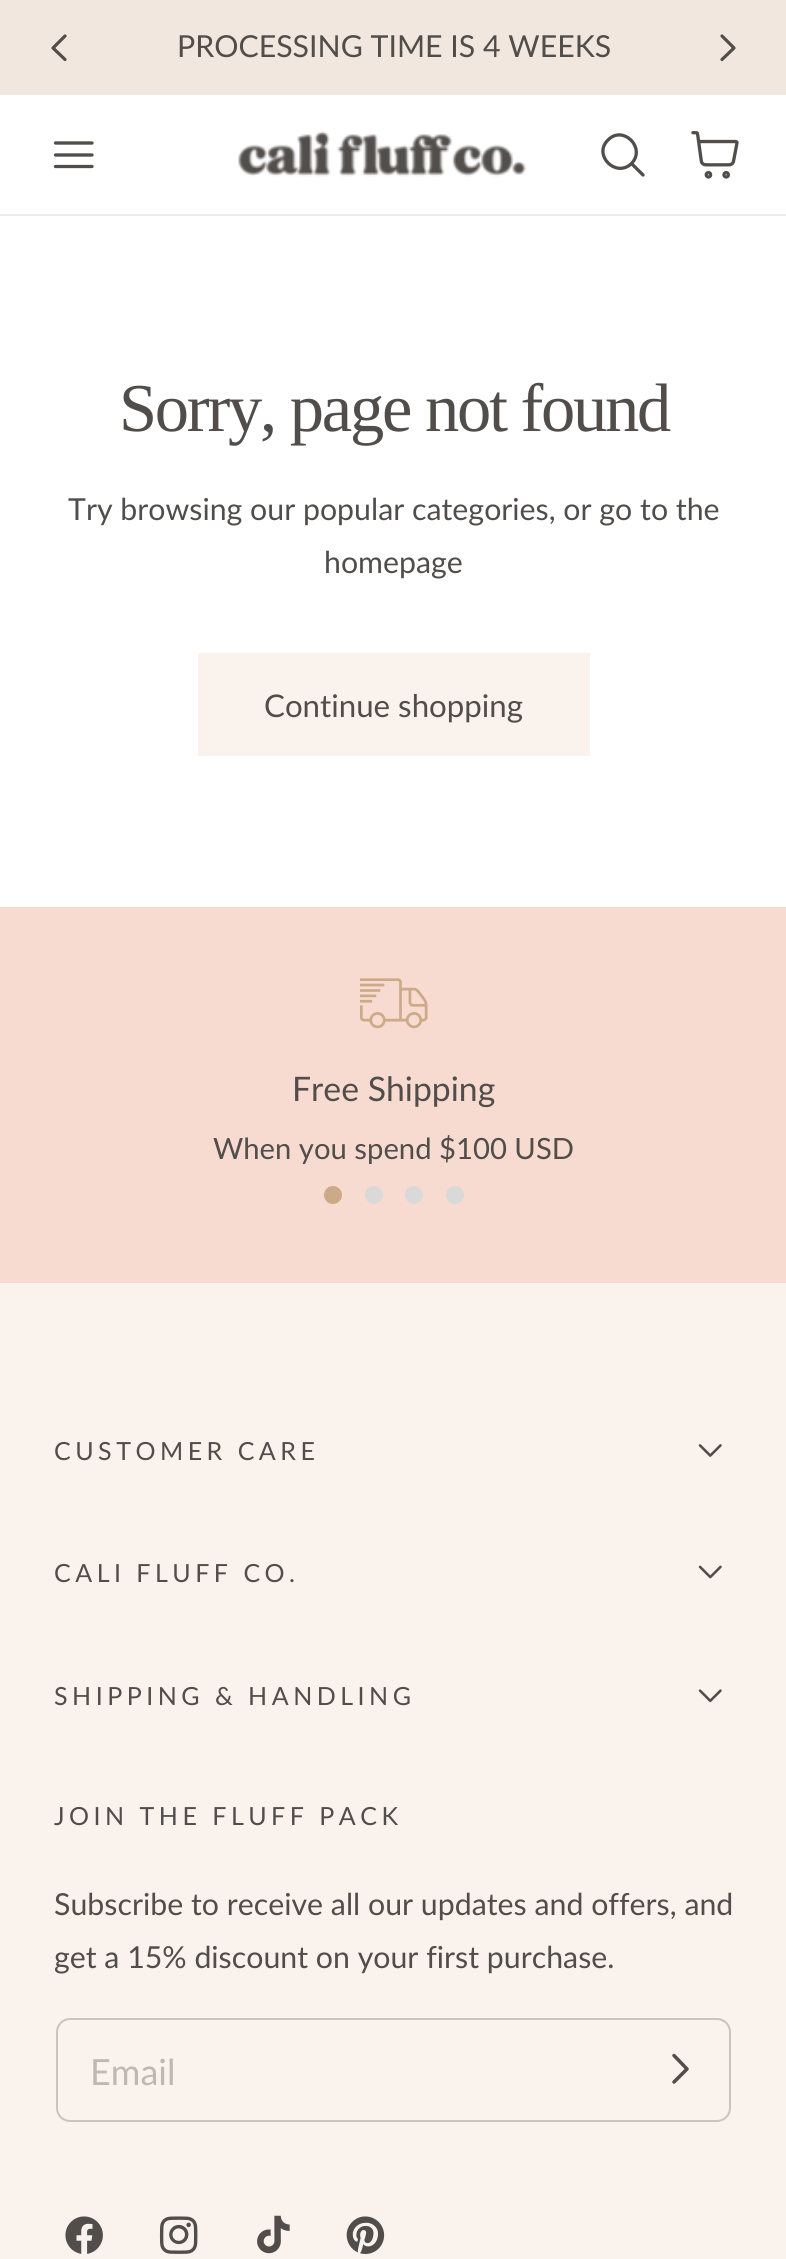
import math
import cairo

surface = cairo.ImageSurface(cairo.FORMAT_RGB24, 786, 2259)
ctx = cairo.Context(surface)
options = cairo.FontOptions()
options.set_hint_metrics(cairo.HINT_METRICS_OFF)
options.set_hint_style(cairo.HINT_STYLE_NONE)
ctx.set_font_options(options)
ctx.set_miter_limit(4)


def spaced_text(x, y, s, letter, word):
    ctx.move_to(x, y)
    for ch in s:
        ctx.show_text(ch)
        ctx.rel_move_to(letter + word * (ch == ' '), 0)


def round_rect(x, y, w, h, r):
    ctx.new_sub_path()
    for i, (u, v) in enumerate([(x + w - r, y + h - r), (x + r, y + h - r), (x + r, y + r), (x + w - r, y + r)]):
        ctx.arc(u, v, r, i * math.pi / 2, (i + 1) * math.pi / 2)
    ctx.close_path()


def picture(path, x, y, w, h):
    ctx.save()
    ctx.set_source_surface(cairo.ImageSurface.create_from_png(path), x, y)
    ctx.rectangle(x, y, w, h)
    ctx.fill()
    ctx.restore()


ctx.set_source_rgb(1, 1, 1)
ctx.paint()
ctx.set_source_rgb(0.945, 0.906, 0.871)
ctx.rectangle(0, 0, 786, 95)
ctx.fill()
ctx.new_path()
ctx.move_to(65, 36)
ctx.line_to(53, 48)
ctx.line_to(65, 59.5)
ctx.set_source_rgb(0.318, 0.302, 0.294)
ctx.set_line_width(3.2)
ctx.set_line_cap(cairo.LINE_CAP_ROUND)
ctx.set_line_join(cairo.LINE_JOIN_ROUND)
ctx.stroke()
ctx.new_path()
ctx.move_to(722, 36)
ctx.line_to(734, 48)
ctx.line_to(722, 59.5)
ctx.stroke()
ctx.select_font_face("Lato")
ctx.set_font_size(30.3)
ctx.move_to(177, 57)
ctx.show_text("PROCESSING TIME IS 4 WEEKS")
ctx.set_source_rgb(0.933, 0.929, 0.929)
ctx.rectangle(0, 214, 786, 2)
ctx.fill()
ctx.new_path()
ctx.move_to(55.5, 143)
ctx.line_to(92, 143)
ctx.move_to(55.5, 155)
ctx.line_to(92, 155)
ctx.move_to(55.5, 166.5)
ctx.line_to(92, 166.5)
ctx.set_source_rgb(0.318, 0.302, 0.294)
ctx.set_line_width(3.3)
ctx.stroke()
picture("img1.png", 238, 131, 289, 46)
ctx.new_path()
ctx.move_to(643, 175)
ctx.line_to(631.5, 163.5)
ctx.move_to(631.5, 163.5)
ctx.curve_to(646.5, 148, 623, 124.5, 608, 140)
ctx.curve_to(592.5, 155, 616, 178.5, 631.5, 163.5)
ctx.close_path()
ctx.stroke()
picture("img2.png", 691, 131, 48, 48)
ctx.select_font_face("Liberation Serif")
ctx.set_font_size(68.5)
spaced_text(119, 431, "Sorry, page not found", -2.25, 0)
ctx.select_font_face("Lato")
ctx.set_font_size(30.3)
ctx.move_to(68, 520)
ctx.show_text("Try browsing our popular categories, or go to the")
ctx.move_to(324, 573)
ctx.show_text("homepage")
ctx.set_source_rgb(0.976, 0.949, 0.929)
ctx.rectangle(198, 653, 392, 103)
ctx.fill()
ctx.set_font_size(31.25)
ctx.set_source_rgb(0.318, 0.302, 0.294)
ctx.move_to(264, 717)
ctx.show_text("Continue shopping")
ctx.set_source_rgb(0.969, 0.859, 0.816)
ctx.rectangle(0, 907, 786, 376)
ctx.fill()
picture("img3.png", 360, 978, 68, 51)
ctx.set_font_size(33.75)
ctx.set_source_rgb(0.318, 0.302, 0.294)
ctx.move_to(292, 1101)
ctx.show_text("Free Shipping")
ctx.set_font_size(29.25)
ctx.move_to(213, 1159)
ctx.show_text("When you spend $100 USD")
ctx.set_source_rgb(0.8, 0.667, 0.529)
ctx.new_path()
ctx.arc(333, 1195, 9, 0, 2 * math.pi)
ctx.fill()
ctx.set_source_rgb(0.851, 0.851, 0.851)
ctx.arc(374, 1195, 9, 0, 2 * math.pi)
ctx.fill()
ctx.arc(414, 1195, 9, 0, 2 * math.pi)
ctx.fill()
ctx.arc(455, 1195, 9, 0, 2 * math.pi)
ctx.fill()
ctx.set_source_rgb(0.976, 0.949, 0.929)
ctx.rectangle(0, 1283, 786, 976)
ctx.fill()
ctx.set_font_size(25)
ctx.set_source_rgb(0.318, 0.302, 0.294)
spaced_text(54, 1460, "CUSTOMER CARE", 4.5, 0)
picture("img4.png", 698, 1444, 24, 13)
spaced_text(54, 1582, "CALI FLUFF CO.", 4.5, 0)
picture("img5.png", 698, 1565, 24, 14)
spaced_text(54, 1705, "SHIPPING & HANDLING", 4.5, 0)
picture("img6.png", 698, 1689, 24, 14)
spaced_text(54, 1825, "JOIN THE FLUFF PACK", 4.5, 0)
ctx.set_font_size(30.3)
ctx.move_to(54, 1915)
ctx.show_text("Subscribe to receive all our updates and offers, and")
ctx.move_to(54, 1968)
ctx.show_text("get a 15% discount on your first purchase.")
round_rect(57, 2019, 673, 102, 13)
ctx.set_source_rgb(0.808, 0.761, 0.733)
ctx.set_line_width(2)
ctx.set_line_cap(cairo.LINE_CAP_BUTT)
ctx.set_line_join(cairo.LINE_JOIN_MITER)
ctx.stroke()
ctx.set_font_size(36)
ctx.set_source_rgb(0.745, 0.722, 0.706)
ctx.move_to(90, 2085)
ctx.show_text("Email")
ctx.new_path()
ctx.move_to(674, 2055.5)
ctx.line_to(687, 2069)
ctx.line_to(674, 2082)
ctx.set_source_rgb(0.318, 0.302, 0.294)
ctx.set_line_width(3.5)
ctx.set_line_cap(cairo.LINE_CAP_ROUND)
ctx.set_line_join(cairo.LINE_JOIN_ROUND)
ctx.stroke()
picture("img7.png", 65, 2216, 38, 38)
picture("img8.png", 159, 2216, 39, 38)
picture("img9.png", 257, 2215, 33, 39)
picture("img10.png", 346, 2216, 39, 38)
surface.write_to_png("page.png")
